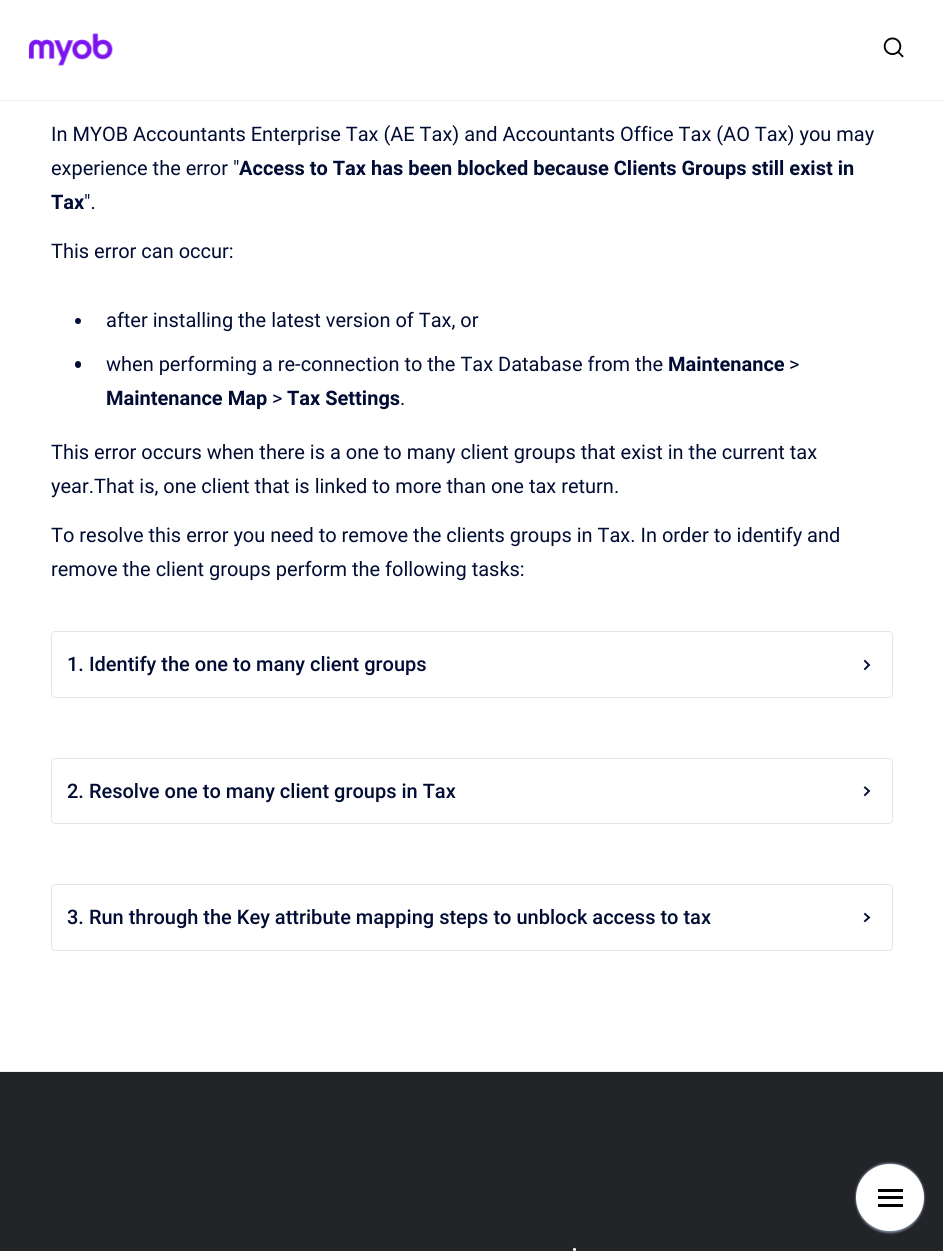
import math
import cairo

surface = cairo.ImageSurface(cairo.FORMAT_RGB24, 943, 1251)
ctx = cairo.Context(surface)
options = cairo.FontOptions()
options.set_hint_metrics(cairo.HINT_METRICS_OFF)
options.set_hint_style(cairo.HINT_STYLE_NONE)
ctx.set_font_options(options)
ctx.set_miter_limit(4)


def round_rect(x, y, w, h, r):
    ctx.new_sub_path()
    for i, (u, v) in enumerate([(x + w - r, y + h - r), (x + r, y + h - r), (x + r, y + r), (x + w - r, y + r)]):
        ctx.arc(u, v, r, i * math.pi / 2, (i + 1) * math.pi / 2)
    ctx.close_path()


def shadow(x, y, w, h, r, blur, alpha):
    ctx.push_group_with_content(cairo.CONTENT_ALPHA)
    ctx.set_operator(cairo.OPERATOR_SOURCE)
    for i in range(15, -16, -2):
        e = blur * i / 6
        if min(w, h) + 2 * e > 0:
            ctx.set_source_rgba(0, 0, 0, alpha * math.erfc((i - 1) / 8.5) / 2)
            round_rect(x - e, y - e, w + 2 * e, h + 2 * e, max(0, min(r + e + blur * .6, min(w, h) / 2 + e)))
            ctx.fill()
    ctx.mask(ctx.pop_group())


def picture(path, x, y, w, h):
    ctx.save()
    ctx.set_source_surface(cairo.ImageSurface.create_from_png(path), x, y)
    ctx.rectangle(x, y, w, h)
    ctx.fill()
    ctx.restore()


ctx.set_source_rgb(1, 1, 1)
ctx.paint()
ctx.set_source_rgb(0.937, 0.941, 0.957)
ctx.rectangle(0, 100, 943, 1)
ctx.fill()
picture("img1.png", 28, 33, 85, 33)
picture("img2.png", 883, 37, 21, 21)
ctx.select_font_face("Roboto")
ctx.set_font_size(20)
ctx.set_source_rgb(0, 0.047, 0.204)
ctx.move_to(51, 141)
ctx.show_text("In MYOB Accountants Enterprise Tax (AE Tax) and Accountants Office Tax (AO Tax) you may")
ctx.move_to(51, 175)
ctx.show_text("experience the error \"")
ctx.select_font_face("Roboto", cairo.FONT_SLANT_NORMAL, cairo.FONT_WEIGHT_BOLD)
ctx.move_to(239, 175)
ctx.show_text("Access to Tax has been blocked because Clients Groups still exist in")
ctx.move_to(51, 209)
ctx.show_text("Tax")
ctx.select_font_face("Roboto")
ctx.move_to(84, 209)
ctx.show_text("\".")
ctx.move_to(51, 258)
ctx.show_text("This error can occur:")
ctx.new_path()
ctx.arc(78, 321, 3, 0, 2 * math.pi)
ctx.fill()
ctx.move_to(106, 327)
ctx.show_text("after installing the latest version of Tax, or")
round_rect(75, 361, 6, 7, 3)
ctx.fill()
ctx.move_to(106, 371)
ctx.show_text("when performing a re-connection to the Tax Database from the")
ctx.select_font_face("Roboto", cairo.FONT_SLANT_NORMAL, cairo.FONT_WEIGHT_BOLD)
ctx.move_to(668, 371)
ctx.show_text("Maintenance")
ctx.select_font_face("Roboto")
ctx.move_to(789, 371)
ctx.show_text(">")
ctx.select_font_face("Roboto", cairo.FONT_SLANT_NORMAL, cairo.FONT_WEIGHT_BOLD)
ctx.move_to(106, 405)
ctx.show_text("Maintenance Map")
ctx.select_font_face("Roboto")
ctx.move_to(272, 405)
ctx.show_text(">")
ctx.select_font_face("Roboto", cairo.FONT_SLANT_NORMAL, cairo.FONT_WEIGHT_BOLD)
ctx.move_to(287, 405)
ctx.show_text("Tax Settings")
ctx.select_font_face("Roboto")
ctx.move_to(400, 405)
ctx.show_text(".")
ctx.move_to(51, 459)
ctx.show_text("This error occurs when there is a one to many client groups that exist in the current tax")
ctx.move_to(51, 493)
ctx.show_text("year.That is, one client that is linked to more than one tax return.")
ctx.move_to(51, 542)
ctx.show_text("To resolve this error you need to remove the clients groups in Tax. In order to identify and")
ctx.move_to(51, 576)
ctx.show_text("remove the client groups perform the following tasks:")
round_rect(51.5, 631.5, 841, 66, 3.5)
ctx.set_source_rgb(0.886, 0.898, 0.922)
ctx.set_line_width(1)
ctx.stroke()
ctx.select_font_face("Roboto Medium")
ctx.set_source_rgb(0, 0.047, 0.204)
ctx.move_to(67, 671)
ctx.show_text("1. Identify the one to many client groups")
ctx.new_path()
ctx.move_to(865, 661)
ctx.line_to(869, 665)
ctx.line_to(865, 669)
ctx.set_line_width(1.9)
ctx.set_line_cap(cairo.LINE_CAP_SQUARE)
ctx.stroke()
round_rect(51.5, 758.5, 841, 65, 3.5)
ctx.set_source_rgb(0.886, 0.898, 0.922)
ctx.set_line_width(1)
ctx.set_line_cap(cairo.LINE_CAP_BUTT)
ctx.stroke()
ctx.set_source_rgb(0, 0.047, 0.204)
ctx.move_to(67, 798)
ctx.show_text("2. Resolve one to many client groups in Tax")
ctx.new_path()
ctx.move_to(865, 787.5)
ctx.line_to(869, 791)
ctx.line_to(865, 795)
ctx.set_line_width(1.9)
ctx.set_line_cap(cairo.LINE_CAP_SQUARE)
ctx.stroke()
round_rect(51.5, 884.5, 841, 66, 3.5)
ctx.set_source_rgb(0.886, 0.898, 0.922)
ctx.set_line_width(1)
ctx.set_line_cap(cairo.LINE_CAP_BUTT)
ctx.stroke()
ctx.set_source_rgb(0, 0.047, 0.204)
ctx.move_to(67, 924)
ctx.show_text("3. Run through the Key attribute mapping steps to unblock access to tax")
ctx.new_path()
ctx.move_to(865, 914)
ctx.line_to(869, 917.5)
ctx.line_to(865, 921)
ctx.set_line_width(1.9)
ctx.set_line_cap(cairo.LINE_CAP_SQUARE)
ctx.stroke()
ctx.set_source_rgb(0.137, 0.141, 0.157)
ctx.rectangle(0, 1072, 943, 179)
ctx.fill()
ctx.set_source_rgb(0.478, 0.525, 0.604)
shadow(856, 1163, 68, 67, 33.5, 1, 1)
shadow(856, 1165, 68, 68, 34, 1, 1)
ctx.set_source_rgb(1, 1, 1)
round_rect(856, 1164, 68, 67, 33.5)
ctx.fill()
ctx.set_source_rgb(0, 0, 0)
ctx.rectangle(878, 1189, 25, 3)
ctx.fill()
ctx.rectangle(878, 1196, 25, 3)
ctx.fill()
ctx.rectangle(878, 1204, 25, 3)
ctx.fill()
ctx.set_source_rgb(0.937, 0.941, 0.957)
ctx.rectangle(0, 1071, 943, 1)
ctx.fill()
ctx.select_font_face("Roboto")
ctx.set_font_size(15)
ctx.set_source_rgb(1, 1, 1)
ctx.move_to(572, 1255)
ctx.show_text("•")
surface.write_to_png("page.png")
